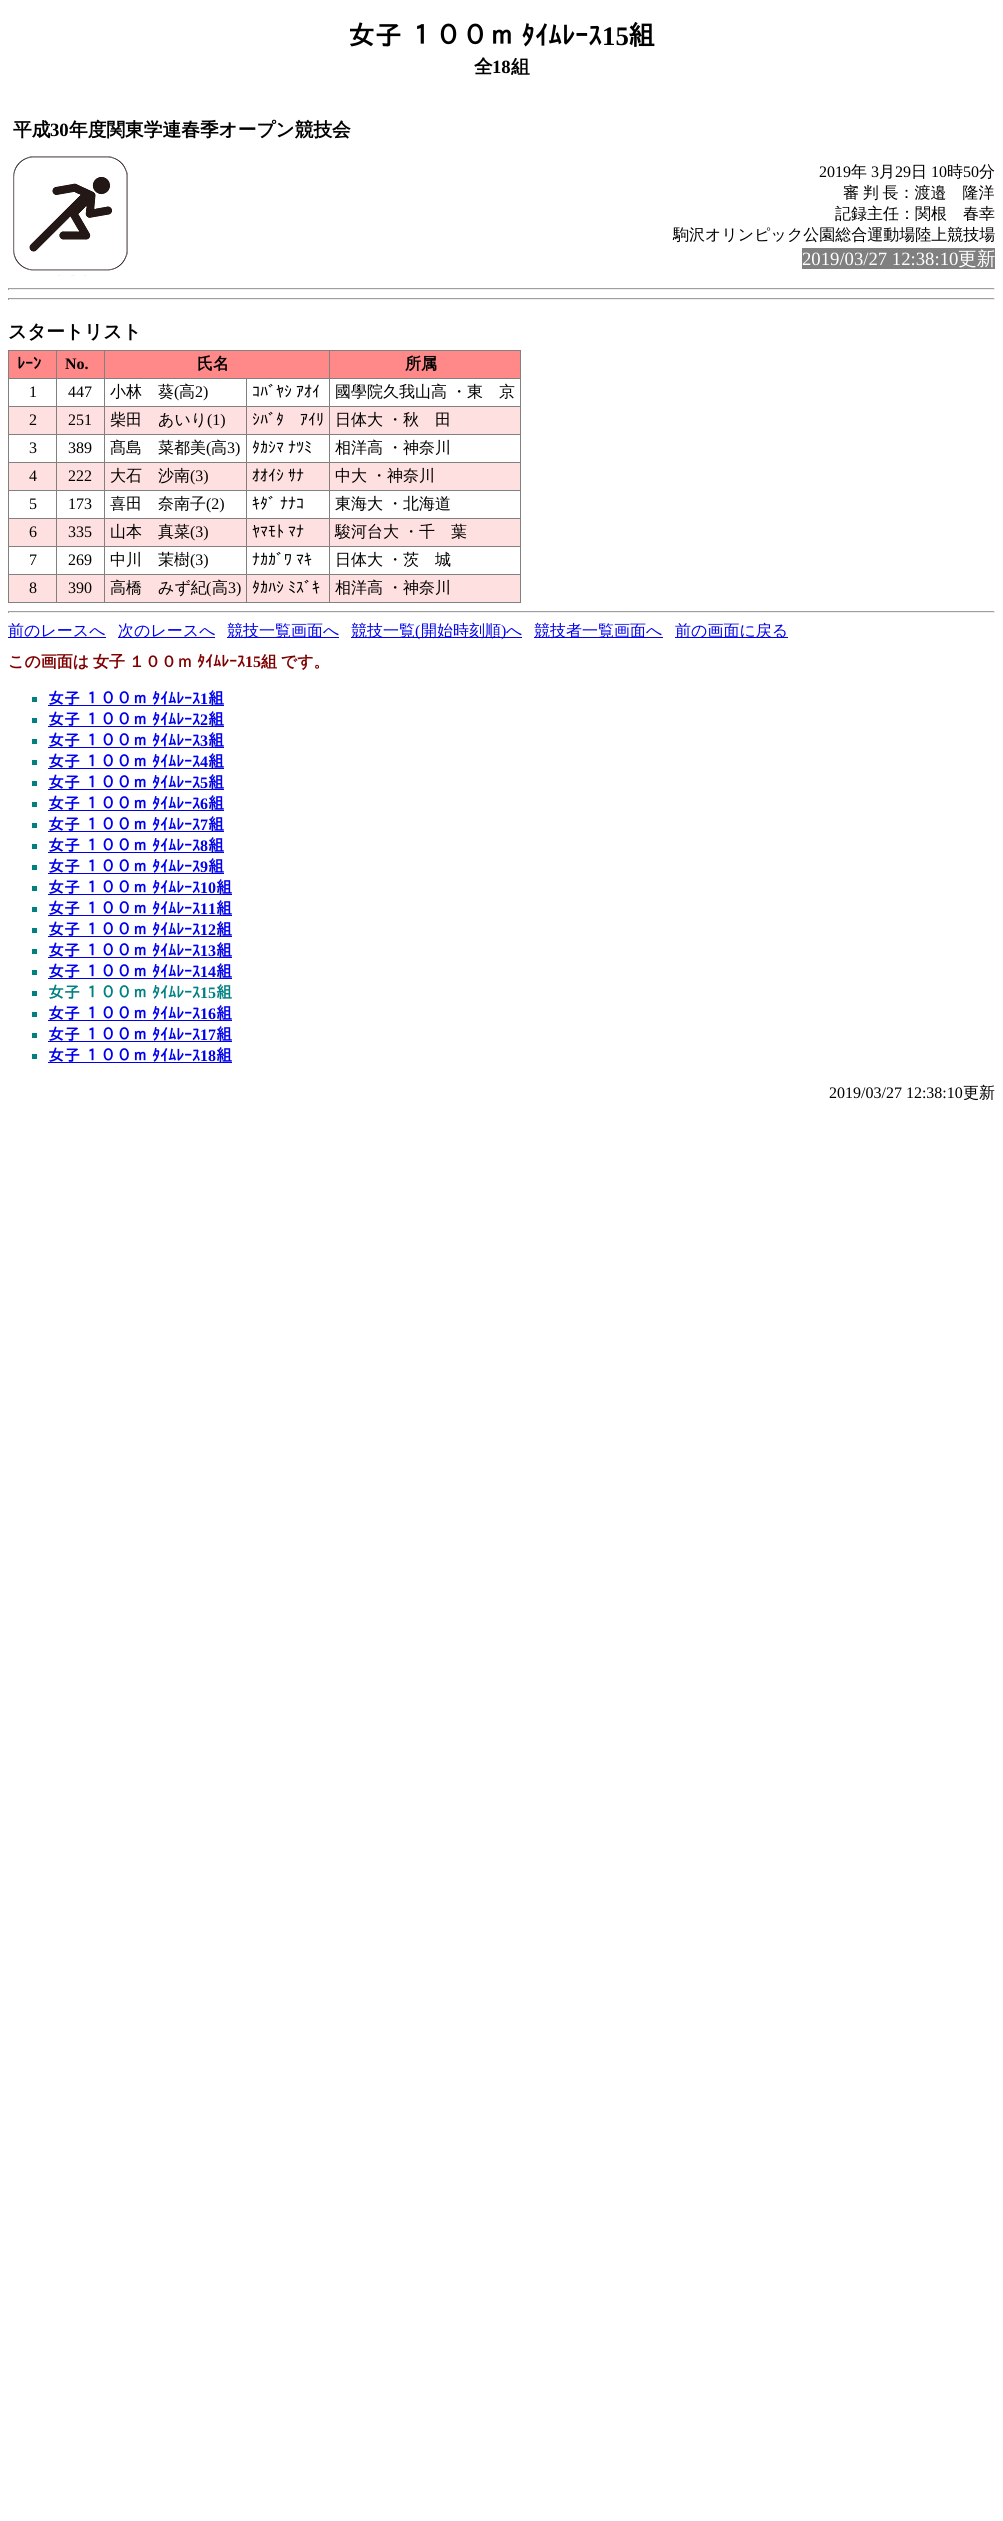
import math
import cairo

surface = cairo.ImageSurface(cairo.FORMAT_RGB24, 1003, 2521)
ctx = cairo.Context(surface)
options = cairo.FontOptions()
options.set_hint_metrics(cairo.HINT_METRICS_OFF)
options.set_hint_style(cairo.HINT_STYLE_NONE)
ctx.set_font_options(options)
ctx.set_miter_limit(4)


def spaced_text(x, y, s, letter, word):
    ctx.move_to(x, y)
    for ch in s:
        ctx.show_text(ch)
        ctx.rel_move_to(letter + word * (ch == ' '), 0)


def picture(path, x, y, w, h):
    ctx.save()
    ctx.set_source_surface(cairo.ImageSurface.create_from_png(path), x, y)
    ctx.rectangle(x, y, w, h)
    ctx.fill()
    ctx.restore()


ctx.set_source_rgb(1, 1, 1)
ctx.paint()
ctx.select_font_face("IPAGothic", cairo.FONT_SLANT_NORMAL, cairo.FONT_WEIGHT_BOLD)
ctx.set_font_size(26.75)
ctx.set_source_rgb(0, 0, 0)
spaced_text(348, 45, "女子 １００ｍ ﾀｲﾑﾚｰｽ", 0, -7)
ctx.select_font_face("Liberation Serif", cairo.FONT_SLANT_NORMAL, cairo.FONT_WEIGHT_BOLD)
ctx.move_to(602, 45)
ctx.show_text("15")
ctx.select_font_face("IPAGothic", cairo.FONT_SLANT_NORMAL, cairo.FONT_WEIGHT_BOLD)
ctx.move_to(628, 45)
ctx.show_text("組")
ctx.select_font_face("WenQuanYi Zen Hei", cairo.FONT_SLANT_NORMAL, cairo.FONT_WEIGHT_BOLD)
ctx.set_font_size(18.7)
ctx.move_to(474, 73)
ctx.show_text("全")
ctx.select_font_face("Liberation Serif", cairo.FONT_SLANT_NORMAL, cairo.FONT_WEIGHT_BOLD)
ctx.move_to(492, 73)
ctx.show_text("18")
ctx.select_font_face("WenQuanYi Zen Hei", cairo.FONT_SLANT_NORMAL, cairo.FONT_WEIGHT_BOLD)
ctx.move_to(511, 73)
ctx.show_text("組")
ctx.move_to(13, 136)
ctx.show_text("平成")
ctx.select_font_face("Liberation Serif", cairo.FONT_SLANT_NORMAL, cairo.FONT_WEIGHT_BOLD)
ctx.move_to(50, 136)
ctx.show_text("30")
ctx.select_font_face("WenQuanYi Zen Hei", cairo.FONT_SLANT_NORMAL, cairo.FONT_WEIGHT_BOLD)
ctx.move_to(69, 136)
ctx.show_text("年度関東学連春季オープン競技会")
picture("img1.png", 13, 156, 115, 120)
ctx.select_font_face("Liberation Serif")
ctx.set_font_size(16)
ctx.move_to(819, 177)
ctx.show_text("2019")
ctx.select_font_face("WenQuanYi Zen Hei Medium")
ctx.move_to(851, 177)
ctx.show_text("年")
ctx.select_font_face("Liberation Serif")
ctx.move_to(871, 177)
ctx.show_text("3")
ctx.select_font_face("WenQuanYi Zen Hei Medium")
ctx.move_to(879, 177)
ctx.show_text("月")
ctx.select_font_face("Liberation Serif")
ctx.move_to(895, 177)
ctx.show_text("29")
ctx.select_font_face("WenQuanYi Zen Hei Medium")
ctx.move_to(911, 177)
ctx.show_text("日")
ctx.select_font_face("Liberation Serif")
ctx.move_to(931, 177)
ctx.show_text("10")
ctx.select_font_face("WenQuanYi Zen Hei Medium")
ctx.move_to(947, 177)
ctx.show_text("時")
ctx.select_font_face("Liberation Serif")
ctx.move_to(963, 177)
ctx.show_text("50")
ctx.select_font_face("WenQuanYi Zen Hei Medium")
ctx.move_to(979, 177)
ctx.show_text("分")
spaced_text(843, 198, "審 判 長：渡邉　隆洋", 0, -1)
ctx.move_to(835, 219)
ctx.show_text("記録主任：関根　春幸")
ctx.move_to(673, 240)
ctx.show_text("駒沢オリンピック公園総合運動場陸上競技場")
ctx.set_source_rgb(0.502, 0.502, 0.502)
ctx.rectangle(802, 248, 193, 21)
ctx.fill()
ctx.select_font_face("Liberation Serif")
ctx.set_font_size(18.7)
ctx.set_source_rgb(1, 1, 1)
ctx.move_to(802, 265)
ctx.show_text("2019/03/27 12:38:10")
ctx.select_font_face("WenQuanYi Zen Hei Medium")
ctx.move_to(958, 265)
ctx.show_text("更新")
ctx.set_source_rgb(0.624, 0.624, 0.624)
ctx.rectangle(8, 288, 987, 1)
ctx.fill()
ctx.set_source_rgb(0.933, 0.933, 0.933)
ctx.rectangle(994, 288, 1, 2)
ctx.fill()
ctx.rectangle(8, 289, 987, 1)
ctx.fill()
ctx.set_source_rgb(0.624, 0.624, 0.624)
ctx.rectangle(8, 288, 1, 2)
ctx.fill()
ctx.rectangle(8, 298, 987, 1)
ctx.fill()
ctx.set_source_rgb(0.933, 0.933, 0.933)
ctx.rectangle(994, 298, 1, 2)
ctx.fill()
ctx.rectangle(8, 299, 987, 1)
ctx.fill()
ctx.set_source_rgb(0.624, 0.624, 0.624)
ctx.rectangle(8, 298, 1, 2)
ctx.fill()
ctx.select_font_face("WenQuanYi Zen Hei", cairo.FONT_SLANT_NORMAL, cairo.FONT_WEIGHT_BOLD)
ctx.set_source_rgb(0, 0, 0)
ctx.move_to(8, 338)
ctx.show_text("スタートリスト")
ctx.set_source_rgb(0.502, 0.502, 0.502)
ctx.rectangle(8, 350, 513, 1)
ctx.fill()
ctx.rectangle(8, 350, 1, 253)
ctx.fill()
ctx.set_source_rgb(1, 0.533, 0.533)
ctx.rectangle(9, 351, 47, 27)
ctx.fill()
ctx.set_source_rgb(1, 0.878, 0.878)
ctx.rectangle(9, 407, 511, 27)
ctx.fill()
ctx.rectangle(9, 463, 511, 27)
ctx.fill()
ctx.rectangle(9, 519, 511, 27)
ctx.fill()
ctx.rectangle(9, 575, 511, 27)
ctx.fill()
ctx.set_source_rgb(0.502, 0.502, 0.502)
ctx.rectangle(520, 350, 1, 253)
ctx.fill()
ctx.rectangle(329, 602, 192, 1)
ctx.fill()
ctx.rectangle(329, 574, 1, 29)
ctx.fill()
ctx.rectangle(329, 574, 192, 1)
ctx.fill()
ctx.rectangle(329, 546, 1, 29)
ctx.fill()
ctx.rectangle(329, 546, 192, 1)
ctx.fill()
ctx.rectangle(329, 518, 1, 29)
ctx.fill()
ctx.rectangle(329, 518, 192, 1)
ctx.fill()
ctx.rectangle(329, 490, 1, 29)
ctx.fill()
ctx.rectangle(329, 490, 192, 1)
ctx.fill()
ctx.rectangle(329, 462, 1, 29)
ctx.fill()
ctx.rectangle(329, 462, 192, 1)
ctx.fill()
ctx.rectangle(329, 434, 1, 29)
ctx.fill()
ctx.rectangle(329, 434, 192, 1)
ctx.fill()
ctx.rectangle(329, 406, 1, 29)
ctx.fill()
ctx.rectangle(329, 406, 192, 1)
ctx.fill()
ctx.rectangle(329, 378, 1, 29)
ctx.fill()
ctx.rectangle(329, 378, 192, 1)
ctx.fill()
ctx.rectangle(329, 350, 1, 29)
ctx.fill()
ctx.rectangle(246, 602, 84, 1)
ctx.fill()
ctx.rectangle(246, 574, 1, 29)
ctx.fill()
ctx.rectangle(246, 574, 84, 1)
ctx.fill()
ctx.rectangle(246, 546, 1, 29)
ctx.fill()
ctx.rectangle(246, 546, 84, 1)
ctx.fill()
ctx.rectangle(246, 518, 1, 29)
ctx.fill()
ctx.rectangle(246, 518, 84, 1)
ctx.fill()
ctx.rectangle(246, 490, 1, 29)
ctx.fill()
ctx.rectangle(246, 490, 84, 1)
ctx.fill()
ctx.rectangle(246, 462, 1, 29)
ctx.fill()
ctx.rectangle(246, 462, 84, 1)
ctx.fill()
ctx.rectangle(246, 434, 1, 29)
ctx.fill()
ctx.rectangle(246, 434, 84, 1)
ctx.fill()
ctx.rectangle(246, 406, 1, 29)
ctx.fill()
ctx.rectangle(246, 406, 84, 1)
ctx.fill()
ctx.rectangle(246, 378, 1, 29)
ctx.fill()
ctx.rectangle(104, 602, 143, 1)
ctx.fill()
ctx.rectangle(104, 574, 1, 29)
ctx.fill()
ctx.rectangle(104, 574, 143, 1)
ctx.fill()
ctx.rectangle(104, 546, 1, 29)
ctx.fill()
ctx.rectangle(104, 546, 143, 1)
ctx.fill()
ctx.rectangle(104, 518, 1, 29)
ctx.fill()
ctx.rectangle(104, 518, 143, 1)
ctx.fill()
ctx.rectangle(104, 490, 1, 29)
ctx.fill()
ctx.rectangle(104, 490, 143, 1)
ctx.fill()
ctx.rectangle(104, 462, 1, 29)
ctx.fill()
ctx.rectangle(104, 462, 143, 1)
ctx.fill()
ctx.rectangle(104, 434, 1, 29)
ctx.fill()
ctx.rectangle(104, 434, 143, 1)
ctx.fill()
ctx.rectangle(104, 406, 1, 29)
ctx.fill()
ctx.rectangle(104, 406, 143, 1)
ctx.fill()
ctx.rectangle(104, 378, 1, 29)
ctx.fill()
ctx.rectangle(104, 378, 226, 1)
ctx.fill()
ctx.rectangle(104, 350, 1, 29)
ctx.fill()
ctx.rectangle(56, 602, 49, 1)
ctx.fill()
ctx.rectangle(56, 574, 1, 29)
ctx.fill()
ctx.rectangle(56, 574, 49, 1)
ctx.fill()
ctx.rectangle(56, 546, 1, 29)
ctx.fill()
ctx.rectangle(56, 546, 49, 1)
ctx.fill()
ctx.rectangle(56, 518, 1, 29)
ctx.fill()
ctx.rectangle(56, 518, 49, 1)
ctx.fill()
ctx.rectangle(56, 490, 1, 29)
ctx.fill()
ctx.rectangle(56, 490, 49, 1)
ctx.fill()
ctx.rectangle(56, 462, 1, 29)
ctx.fill()
ctx.rectangle(56, 462, 49, 1)
ctx.fill()
ctx.rectangle(56, 434, 1, 29)
ctx.fill()
ctx.rectangle(56, 434, 49, 1)
ctx.fill()
ctx.rectangle(56, 406, 1, 29)
ctx.fill()
ctx.rectangle(56, 406, 49, 1)
ctx.fill()
ctx.rectangle(56, 378, 1, 29)
ctx.fill()
ctx.rectangle(56, 378, 49, 1)
ctx.fill()
ctx.rectangle(56, 350, 1, 29)
ctx.fill()
ctx.rectangle(8, 378, 49, 1)
ctx.fill()
ctx.select_font_face("IPAGothic", cairo.FONT_SLANT_NORMAL, cairo.FONT_WEIGHT_BOLD)
ctx.set_font_size(16)
ctx.set_source_rgb(0, 0, 0)
ctx.move_to(17, 369)
ctx.show_text("ﾚｰﾝ")
ctx.set_source_rgb(1, 0.533, 0.533)
ctx.rectangle(57, 351, 47, 27)
ctx.fill()
ctx.select_font_face("Liberation Serif", cairo.FONT_SLANT_NORMAL, cairo.FONT_WEIGHT_BOLD)
ctx.set_source_rgb(0, 0, 0)
ctx.move_to(65, 369)
ctx.show_text("No.")
ctx.set_source_rgb(1, 0.533, 0.533)
ctx.rectangle(105, 351, 224, 27)
ctx.fill()
ctx.select_font_face("WenQuanYi Zen Hei", cairo.FONT_SLANT_NORMAL, cairo.FONT_WEIGHT_BOLD)
ctx.set_source_rgb(0, 0, 0)
ctx.move_to(197, 369)
ctx.show_text("氏名")
ctx.set_source_rgb(1, 0.533, 0.533)
ctx.rectangle(330, 351, 190, 27)
ctx.fill()
ctx.set_source_rgb(0, 0, 0)
ctx.move_to(405, 369)
ctx.show_text("所属")
ctx.set_source_rgb(0.502, 0.502, 0.502)
ctx.rectangle(8, 406, 49, 1)
ctx.fill()
ctx.select_font_face("Liberation Serif")
ctx.set_source_rgb(0, 0, 0)
ctx.move_to(29, 397)
ctx.show_text("1")
ctx.move_to(68, 397)
ctx.show_text("447")
ctx.select_font_face("WenQuanYi Zen Hei Medium")
ctx.move_to(110, 397)
ctx.show_text("小林　葵")
ctx.select_font_face("Liberation Serif")
ctx.move_to(174, 397)
ctx.show_text("(")
ctx.select_font_face("WenQuanYi Zen Hei Medium")
ctx.move_to(179, 397)
ctx.show_text("高")
ctx.select_font_face("Liberation Serif")
ctx.move_to(195, 397)
ctx.show_text("2)")
ctx.select_font_face("IPAGothic")
spaced_text(252, 397, "ｺﾊﾞﾔｼ ｱｵｲ", 0, -4)
ctx.select_font_face("WenQuanYi Zen Hei Medium")
ctx.move_to(335, 397)
ctx.show_text("國學院久我山高")
ctx.move_to(451, 397)
ctx.show_text("・東　京")
ctx.set_source_rgb(0.502, 0.502, 0.502)
ctx.rectangle(8, 434, 49, 1)
ctx.fill()
ctx.select_font_face("Liberation Serif")
ctx.set_source_rgb(0, 0, 0)
ctx.move_to(29, 425)
ctx.show_text("2")
ctx.move_to(68, 425)
ctx.show_text("251")
ctx.select_font_face("WenQuanYi Zen Hei Medium")
ctx.move_to(110, 425)
ctx.show_text("柴田　あいり")
ctx.select_font_face("Liberation Serif")
ctx.move_to(207, 425)
ctx.show_text("(1)")
ctx.select_font_face("IPAGothic")
ctx.move_to(252, 425)
ctx.show_text("ｼﾊﾞﾀ　ｱｲﾘ")
ctx.select_font_face("WenQuanYi Zen Hei Medium")
ctx.move_to(335, 425)
ctx.show_text("日体大")
ctx.move_to(387, 425)
ctx.show_text("・秋　田")
ctx.set_source_rgb(0.502, 0.502, 0.502)
ctx.rectangle(8, 462, 49, 1)
ctx.fill()
ctx.select_font_face("Liberation Serif")
ctx.set_source_rgb(0, 0, 0)
ctx.move_to(29, 453)
ctx.show_text("3")
ctx.move_to(68, 453)
ctx.show_text("389")
ctx.select_font_face("WenQuanYi Zen Hei Medium")
ctx.move_to(110, 453)
ctx.show_text("髙島　菜都美")
ctx.select_font_face("Liberation Serif")
ctx.move_to(206, 453)
ctx.show_text("(")
ctx.select_font_face("WenQuanYi Zen Hei Medium")
ctx.move_to(211, 453)
ctx.show_text("高")
ctx.select_font_face("Liberation Serif")
ctx.move_to(227, 453)
ctx.show_text("3)")
ctx.select_font_face("IPAGothic")
spaced_text(252, 453, "ﾀｶｼﾏ ﾅﾂﾐ", 0, -4)
ctx.select_font_face("WenQuanYi Zen Hei Medium")
ctx.move_to(335, 453)
ctx.show_text("相洋高")
ctx.move_to(387, 453)
ctx.show_text("・神奈川")
ctx.set_source_rgb(0.502, 0.502, 0.502)
ctx.rectangle(8, 490, 49, 1)
ctx.fill()
ctx.select_font_face("Liberation Serif")
ctx.set_source_rgb(0, 0, 0)
ctx.move_to(29, 481)
ctx.show_text("4")
ctx.move_to(68, 481)
ctx.show_text("222")
ctx.select_font_face("WenQuanYi Zen Hei Medium")
ctx.move_to(110, 481)
ctx.show_text("大石　沙南")
ctx.select_font_face("Liberation Serif")
ctx.move_to(190, 481)
ctx.show_text("(3)")
ctx.select_font_face("IPAGothic")
spaced_text(252, 481, "ｵｵｲｼ ｻﾅ", 0, -4)
ctx.select_font_face("WenQuanYi Zen Hei Medium")
ctx.move_to(335, 481)
ctx.show_text("中大")
ctx.move_to(371, 481)
ctx.show_text("・神奈川")
ctx.set_source_rgb(0.502, 0.502, 0.502)
ctx.rectangle(8, 518, 49, 1)
ctx.fill()
ctx.select_font_face("Liberation Serif")
ctx.set_source_rgb(0, 0, 0)
ctx.move_to(29, 509)
ctx.show_text("5")
ctx.move_to(68, 509)
ctx.show_text("173")
ctx.select_font_face("WenQuanYi Zen Hei Medium")
ctx.move_to(110, 509)
ctx.show_text("喜田　奈南子")
ctx.select_font_face("Liberation Serif")
ctx.move_to(206, 509)
ctx.show_text("(2)")
ctx.select_font_face("IPAGothic")
spaced_text(252, 509, "ｷﾀﾞ ﾅﾅｺ", 0, -4)
ctx.select_font_face("WenQuanYi Zen Hei Medium")
ctx.move_to(335, 509)
ctx.show_text("東海大")
ctx.move_to(387, 509)
ctx.show_text("・北海道")
ctx.set_source_rgb(0.502, 0.502, 0.502)
ctx.rectangle(8, 546, 49, 1)
ctx.fill()
ctx.select_font_face("Liberation Serif")
ctx.set_source_rgb(0, 0, 0)
ctx.move_to(29, 537)
ctx.show_text("6")
ctx.move_to(68, 537)
ctx.show_text("335")
ctx.select_font_face("WenQuanYi Zen Hei Medium")
ctx.move_to(110, 537)
ctx.show_text("山本　真菜")
ctx.select_font_face("Liberation Serif")
ctx.move_to(190, 537)
ctx.show_text("(3)")
ctx.select_font_face("IPAGothic")
spaced_text(252, 537, "ﾔﾏﾓﾄ ﾏﾅ", 0, -4)
ctx.select_font_face("WenQuanYi Zen Hei Medium")
ctx.move_to(335, 537)
ctx.show_text("駿河台大")
ctx.move_to(403, 537)
ctx.show_text("・千　葉")
ctx.set_source_rgb(0.502, 0.502, 0.502)
ctx.rectangle(8, 574, 49, 1)
ctx.fill()
ctx.select_font_face("Liberation Serif")
ctx.set_source_rgb(0, 0, 0)
ctx.move_to(29, 565)
ctx.show_text("7")
ctx.move_to(68, 565)
ctx.show_text("269")
ctx.select_font_face("WenQuanYi Zen Hei Medium")
ctx.move_to(110, 565)
ctx.show_text("中川　茉樹")
ctx.select_font_face("Liberation Serif")
ctx.move_to(190, 565)
ctx.show_text("(3)")
ctx.select_font_face("IPAGothic")
spaced_text(252, 565, "ﾅｶｶﾞﾜ ﾏｷ", 0, -4)
ctx.select_font_face("WenQuanYi Zen Hei Medium")
ctx.move_to(335, 565)
ctx.show_text("日体大")
ctx.move_to(387, 565)
ctx.show_text("・茨　城")
ctx.set_source_rgb(0.502, 0.502, 0.502)
ctx.rectangle(8, 602, 49, 1)
ctx.fill()
ctx.select_font_face("Liberation Serif")
ctx.set_source_rgb(0, 0, 0)
ctx.move_to(29, 593)
ctx.show_text("8")
ctx.move_to(68, 593)
ctx.show_text("390")
ctx.select_font_face("WenQuanYi Zen Hei Medium")
ctx.move_to(110, 593)
ctx.show_text("高橋　みず紀")
ctx.select_font_face("Liberation Serif")
ctx.move_to(206, 593)
ctx.show_text("(")
ctx.select_font_face("WenQuanYi Zen Hei Medium")
ctx.move_to(212, 593)
ctx.show_text("高")
ctx.select_font_face("Liberation Serif")
ctx.move_to(228, 593)
ctx.show_text("3)")
ctx.select_font_face("IPAGothic")
spaced_text(252, 593, "ﾀｶﾊｼ ﾐｽﾞｷ", 0, -4)
ctx.select_font_face("WenQuanYi Zen Hei Medium")
ctx.move_to(335, 593)
ctx.show_text("相洋高")
ctx.move_to(387, 593)
ctx.show_text("・神奈川")
ctx.set_source_rgb(0.624, 0.624, 0.624)
ctx.rectangle(8, 611, 987, 1)
ctx.fill()
ctx.set_source_rgb(0.933, 0.933, 0.933)
ctx.rectangle(994, 611, 1, 2)
ctx.fill()
ctx.rectangle(8, 612, 987, 1)
ctx.fill()
ctx.set_source_rgb(0.624, 0.624, 0.624)
ctx.rectangle(8, 611, 1, 2)
ctx.fill()
ctx.set_source_rgb(0, 0, 0.933)
ctx.rectangle(8, 637, 98, 1)
ctx.fill()
ctx.move_to(8, 636)
ctx.show_text("前のレースへ")
ctx.rectangle(118, 637, 97, 1)
ctx.fill()
ctx.move_to(118, 636)
ctx.show_text("次のレースへ")
ctx.rectangle(227, 637, 112, 1)
ctx.fill()
ctx.move_to(227, 636)
ctx.show_text("競技一覧画面へ")
ctx.rectangle(351, 637, 171, 1)
ctx.fill()
ctx.move_to(351, 636)
ctx.show_text("競技一覧")
ctx.select_font_face("Liberation Serif")
ctx.move_to(415, 636)
ctx.show_text("(")
ctx.select_font_face("WenQuanYi Zen Hei Medium")
ctx.move_to(421, 636)
ctx.show_text("開始時刻順")
ctx.select_font_face("Liberation Serif")
ctx.move_to(501, 636)
ctx.show_text(")")
ctx.select_font_face("WenQuanYi Zen Hei Medium")
ctx.move_to(506, 636)
ctx.show_text("へ")
ctx.rectangle(534, 637, 129, 1)
ctx.fill()
ctx.move_to(534, 636)
ctx.show_text("競技者一覧画面へ")
ctx.rectangle(675, 637, 113, 1)
ctx.fill()
ctx.move_to(675, 636)
ctx.show_text("前の画面に戻る")
ctx.select_font_face("WenQuanYi Zen Hei", cairo.FONT_SLANT_NORMAL, cairo.FONT_WEIGHT_BOLD)
ctx.set_source_rgb(0.502, 0, 0)
spaced_text(8, 667, "この画面は 女子 １００ｍ", 0, -1)
ctx.select_font_face("IPAGothic", cairo.FONT_SLANT_NORMAL, cairo.FONT_WEIGHT_BOLD)
ctx.move_to(197, 667)
ctx.show_text("ﾀｲﾑﾚｰｽ")
ctx.select_font_face("Liberation Serif", cairo.FONT_SLANT_NORMAL, cairo.FONT_WEIGHT_BOLD)
ctx.move_to(245, 667)
ctx.show_text("15")
ctx.select_font_face("WenQuanYi Zen Hei", cairo.FONT_SLANT_NORMAL, cairo.FONT_WEIGHT_BOLD)
spaced_text(261, 667, "組 です。", 0, -1)
ctx.set_source_rgb(0, 0.502, 0.502)
ctx.rectangle(32, 697, 5, 5)
ctx.fill()
ctx.select_font_face("IPAGothic", cairo.FONT_SLANT_NORMAL, cairo.FONT_WEIGHT_BOLD)
ctx.set_source_rgb(0, 0, 0.933)
spaced_text(48, 704, "女子 １００ｍ ﾀｲﾑﾚｰｽ", 0, -4)
ctx.select_font_face("Liberation Serif", cairo.FONT_SLANT_NORMAL, cairo.FONT_WEIGHT_BOLD)
ctx.move_to(200, 704)
ctx.show_text("1")
ctx.rectangle(48, 705, 176, 1)
ctx.fill()
ctx.select_font_face("IPAGothic", cairo.FONT_SLANT_NORMAL, cairo.FONT_WEIGHT_BOLD)
ctx.move_to(208, 704)
ctx.show_text("組")
ctx.set_source_rgb(0, 0.502, 0.502)
ctx.rectangle(32, 718, 5, 5)
ctx.fill()
ctx.set_source_rgb(0, 0, 0.933)
spaced_text(48, 725, "女子 １００ｍ ﾀｲﾑﾚｰｽ", 0, -4)
ctx.select_font_face("Liberation Serif", cairo.FONT_SLANT_NORMAL, cairo.FONT_WEIGHT_BOLD)
ctx.move_to(200, 725)
ctx.show_text("2")
ctx.rectangle(48, 726, 176, 1)
ctx.fill()
ctx.select_font_face("IPAGothic", cairo.FONT_SLANT_NORMAL, cairo.FONT_WEIGHT_BOLD)
ctx.move_to(208, 725)
ctx.show_text("組")
ctx.set_source_rgb(0, 0.502, 0.502)
ctx.rectangle(32, 739, 5, 5)
ctx.fill()
ctx.set_source_rgb(0, 0, 0.933)
spaced_text(48, 746, "女子 １００ｍ ﾀｲﾑﾚｰｽ", 0, -4)
ctx.select_font_face("Liberation Serif", cairo.FONT_SLANT_NORMAL, cairo.FONT_WEIGHT_BOLD)
ctx.move_to(200, 746)
ctx.show_text("3")
ctx.rectangle(48, 747, 176, 1)
ctx.fill()
ctx.select_font_face("IPAGothic", cairo.FONT_SLANT_NORMAL, cairo.FONT_WEIGHT_BOLD)
ctx.move_to(208, 746)
ctx.show_text("組")
ctx.set_source_rgb(0, 0.502, 0.502)
ctx.rectangle(32, 760, 5, 5)
ctx.fill()
ctx.set_source_rgb(0, 0, 0.933)
spaced_text(48, 767, "女子 １００ｍ ﾀｲﾑﾚｰｽ", 0, -4)
ctx.select_font_face("Liberation Serif", cairo.FONT_SLANT_NORMAL, cairo.FONT_WEIGHT_BOLD)
ctx.move_to(200, 767)
ctx.show_text("4")
ctx.rectangle(48, 768, 176, 1)
ctx.fill()
ctx.select_font_face("IPAGothic", cairo.FONT_SLANT_NORMAL, cairo.FONT_WEIGHT_BOLD)
ctx.move_to(208, 767)
ctx.show_text("組")
ctx.set_source_rgb(0, 0.502, 0.502)
ctx.rectangle(32, 781, 5, 5)
ctx.fill()
ctx.set_source_rgb(0, 0, 0.933)
spaced_text(48, 788, "女子 １００ｍ ﾀｲﾑﾚｰｽ", 0, -4)
ctx.select_font_face("Liberation Serif", cairo.FONT_SLANT_NORMAL, cairo.FONT_WEIGHT_BOLD)
ctx.move_to(200, 788)
ctx.show_text("5")
ctx.rectangle(48, 789, 176, 1)
ctx.fill()
ctx.select_font_face("IPAGothic", cairo.FONT_SLANT_NORMAL, cairo.FONT_WEIGHT_BOLD)
ctx.move_to(208, 788)
ctx.show_text("組")
ctx.set_source_rgb(0, 0.502, 0.502)
ctx.rectangle(32, 802, 5, 5)
ctx.fill()
ctx.set_source_rgb(0, 0, 0.933)
spaced_text(48, 809, "女子 １００ｍ ﾀｲﾑﾚｰｽ", 0, -4)
ctx.select_font_face("Liberation Serif", cairo.FONT_SLANT_NORMAL, cairo.FONT_WEIGHT_BOLD)
ctx.move_to(200, 809)
ctx.show_text("6")
ctx.rectangle(48, 810, 176, 1)
ctx.fill()
ctx.select_font_face("IPAGothic", cairo.FONT_SLANT_NORMAL, cairo.FONT_WEIGHT_BOLD)
ctx.move_to(208, 809)
ctx.show_text("組")
ctx.set_source_rgb(0, 0.502, 0.502)
ctx.rectangle(32, 823, 5, 5)
ctx.fill()
ctx.set_source_rgb(0, 0, 0.933)
spaced_text(48, 830, "女子 １００ｍ ﾀｲﾑﾚｰｽ", 0, -4)
ctx.select_font_face("Liberation Serif", cairo.FONT_SLANT_NORMAL, cairo.FONT_WEIGHT_BOLD)
ctx.move_to(200, 830)
ctx.show_text("7")
ctx.rectangle(48, 831, 176, 1)
ctx.fill()
ctx.select_font_face("IPAGothic", cairo.FONT_SLANT_NORMAL, cairo.FONT_WEIGHT_BOLD)
ctx.move_to(208, 830)
ctx.show_text("組")
ctx.set_source_rgb(0, 0.502, 0.502)
ctx.rectangle(32, 844, 5, 5)
ctx.fill()
ctx.set_source_rgb(0, 0, 0.933)
spaced_text(48, 851, "女子 １００ｍ ﾀｲﾑﾚｰｽ", 0, -4)
ctx.select_font_face("Liberation Serif", cairo.FONT_SLANT_NORMAL, cairo.FONT_WEIGHT_BOLD)
ctx.move_to(200, 851)
ctx.show_text("8")
ctx.rectangle(48, 852, 176, 1)
ctx.fill()
ctx.select_font_face("IPAGothic", cairo.FONT_SLANT_NORMAL, cairo.FONT_WEIGHT_BOLD)
ctx.move_to(208, 851)
ctx.show_text("組")
ctx.set_source_rgb(0, 0.502, 0.502)
ctx.rectangle(32, 865, 5, 5)
ctx.fill()
ctx.set_source_rgb(0, 0, 0.933)
spaced_text(48, 872, "女子 １００ｍ ﾀｲﾑﾚｰｽ", 0, -4)
ctx.select_font_face("Liberation Serif", cairo.FONT_SLANT_NORMAL, cairo.FONT_WEIGHT_BOLD)
ctx.move_to(200, 872)
ctx.show_text("9")
ctx.rectangle(48, 873, 176, 1)
ctx.fill()
ctx.select_font_face("IPAGothic", cairo.FONT_SLANT_NORMAL, cairo.FONT_WEIGHT_BOLD)
ctx.move_to(208, 872)
ctx.show_text("組")
ctx.set_source_rgb(0, 0.502, 0.502)
ctx.rectangle(32, 886, 5, 5)
ctx.fill()
ctx.set_source_rgb(0, 0, 0.933)
spaced_text(48, 893, "女子 １００ｍ ﾀｲﾑﾚｰｽ", 0, -4)
ctx.select_font_face("Liberation Serif", cairo.FONT_SLANT_NORMAL, cairo.FONT_WEIGHT_BOLD)
ctx.move_to(200, 893)
ctx.show_text("10")
ctx.rectangle(48, 894, 184, 1)
ctx.fill()
ctx.select_font_face("IPAGothic", cairo.FONT_SLANT_NORMAL, cairo.FONT_WEIGHT_BOLD)
ctx.move_to(216, 893)
ctx.show_text("組")
ctx.set_source_rgb(0, 0.502, 0.502)
ctx.rectangle(32, 907, 5, 5)
ctx.fill()
ctx.set_source_rgb(0, 0, 0.933)
spaced_text(48, 914, "女子 １００ｍ ﾀｲﾑﾚｰｽ", 0, -4)
ctx.select_font_face("Liberation Serif", cairo.FONT_SLANT_NORMAL, cairo.FONT_WEIGHT_BOLD)
ctx.move_to(200, 914)
ctx.show_text("11")
ctx.rectangle(48, 915, 184, 1)
ctx.fill()
ctx.select_font_face("IPAGothic", cairo.FONT_SLANT_NORMAL, cairo.FONT_WEIGHT_BOLD)
ctx.move_to(216, 914)
ctx.show_text("組")
ctx.set_source_rgb(0, 0.502, 0.502)
ctx.rectangle(32, 928, 5, 5)
ctx.fill()
ctx.set_source_rgb(0, 0, 0.933)
spaced_text(48, 935, "女子 １００ｍ ﾀｲﾑﾚｰｽ", 0, -4)
ctx.select_font_face("Liberation Serif", cairo.FONT_SLANT_NORMAL, cairo.FONT_WEIGHT_BOLD)
ctx.move_to(200, 935)
ctx.show_text("12")
ctx.rectangle(48, 936, 184, 1)
ctx.fill()
ctx.select_font_face("IPAGothic", cairo.FONT_SLANT_NORMAL, cairo.FONT_WEIGHT_BOLD)
ctx.move_to(216, 935)
ctx.show_text("組")
ctx.set_source_rgb(0, 0.502, 0.502)
ctx.rectangle(32, 949, 5, 5)
ctx.fill()
ctx.set_source_rgb(0, 0, 0.933)
spaced_text(48, 956, "女子 １００ｍ ﾀｲﾑﾚｰｽ", 0, -4)
ctx.select_font_face("Liberation Serif", cairo.FONT_SLANT_NORMAL, cairo.FONT_WEIGHT_BOLD)
ctx.move_to(200, 956)
ctx.show_text("13")
ctx.rectangle(48, 957, 184, 1)
ctx.fill()
ctx.select_font_face("IPAGothic", cairo.FONT_SLANT_NORMAL, cairo.FONT_WEIGHT_BOLD)
ctx.move_to(216, 956)
ctx.show_text("組")
ctx.set_source_rgb(0, 0.502, 0.502)
ctx.rectangle(32, 970, 5, 5)
ctx.fill()
ctx.set_source_rgb(0, 0, 0.933)
spaced_text(48, 977, "女子 １００ｍ ﾀｲﾑﾚｰｽ", 0, -4)
ctx.select_font_face("Liberation Serif", cairo.FONT_SLANT_NORMAL, cairo.FONT_WEIGHT_BOLD)
ctx.move_to(200, 977)
ctx.show_text("14")
ctx.rectangle(48, 978, 184, 1)
ctx.fill()
ctx.select_font_face("IPAGothic", cairo.FONT_SLANT_NORMAL, cairo.FONT_WEIGHT_BOLD)
ctx.move_to(216, 977)
ctx.show_text("組")
ctx.set_source_rgb(0, 0.502, 0.502)
ctx.rectangle(32, 991, 5, 5)
ctx.fill()
spaced_text(48, 998, "女子 １００ｍ ﾀｲﾑﾚｰｽ", 0, -4)
ctx.select_font_face("Liberation Serif", cairo.FONT_SLANT_NORMAL, cairo.FONT_WEIGHT_BOLD)
ctx.move_to(200, 998)
ctx.show_text("15")
ctx.select_font_face("IPAGothic", cairo.FONT_SLANT_NORMAL, cairo.FONT_WEIGHT_BOLD)
ctx.move_to(216, 998)
ctx.show_text("組")
ctx.rectangle(32, 1012, 5, 5)
ctx.fill()
ctx.set_source_rgb(0, 0, 0.933)
spaced_text(48, 1019, "女子 １００ｍ ﾀｲﾑﾚｰｽ", 0, -4)
ctx.select_font_face("Liberation Serif", cairo.FONT_SLANT_NORMAL, cairo.FONT_WEIGHT_BOLD)
ctx.move_to(200, 1019)
ctx.show_text("16")
ctx.rectangle(48, 1020, 184, 1)
ctx.fill()
ctx.select_font_face("IPAGothic", cairo.FONT_SLANT_NORMAL, cairo.FONT_WEIGHT_BOLD)
ctx.move_to(216, 1019)
ctx.show_text("組")
ctx.set_source_rgb(0, 0.502, 0.502)
ctx.rectangle(32, 1033, 5, 5)
ctx.fill()
ctx.set_source_rgb(0, 0, 0.933)
spaced_text(48, 1040, "女子 １００ｍ ﾀｲﾑﾚｰｽ", 0, -4)
ctx.select_font_face("Liberation Serif", cairo.FONT_SLANT_NORMAL, cairo.FONT_WEIGHT_BOLD)
ctx.move_to(200, 1040)
ctx.show_text("17")
ctx.rectangle(48, 1041, 184, 1)
ctx.fill()
ctx.select_font_face("IPAGothic", cairo.FONT_SLANT_NORMAL, cairo.FONT_WEIGHT_BOLD)
ctx.move_to(216, 1040)
ctx.show_text("組")
ctx.set_source_rgb(0, 0.502, 0.502)
ctx.rectangle(32, 1054, 5, 5)
ctx.fill()
ctx.set_source_rgb(0, 0, 0.933)
spaced_text(48, 1061, "女子 １００ｍ ﾀｲﾑﾚｰｽ", 0, -4)
ctx.select_font_face("Liberation Serif", cairo.FONT_SLANT_NORMAL, cairo.FONT_WEIGHT_BOLD)
ctx.move_to(200, 1061)
ctx.show_text("18")
ctx.rectangle(48, 1062, 184, 1)
ctx.fill()
ctx.select_font_face("IPAGothic", cairo.FONT_SLANT_NORMAL, cairo.FONT_WEIGHT_BOLD)
ctx.move_to(216, 1061)
ctx.show_text("組")
ctx.select_font_face("Liberation Serif")
ctx.set_source_rgb(0, 0, 0)
ctx.move_to(829, 1098)
ctx.show_text("2019/03/27 12:38:10")
ctx.select_font_face("WenQuanYi Zen Hei Medium")
ctx.move_to(963, 1098)
ctx.show_text("更新")
surface.write_to_png("page.png")
